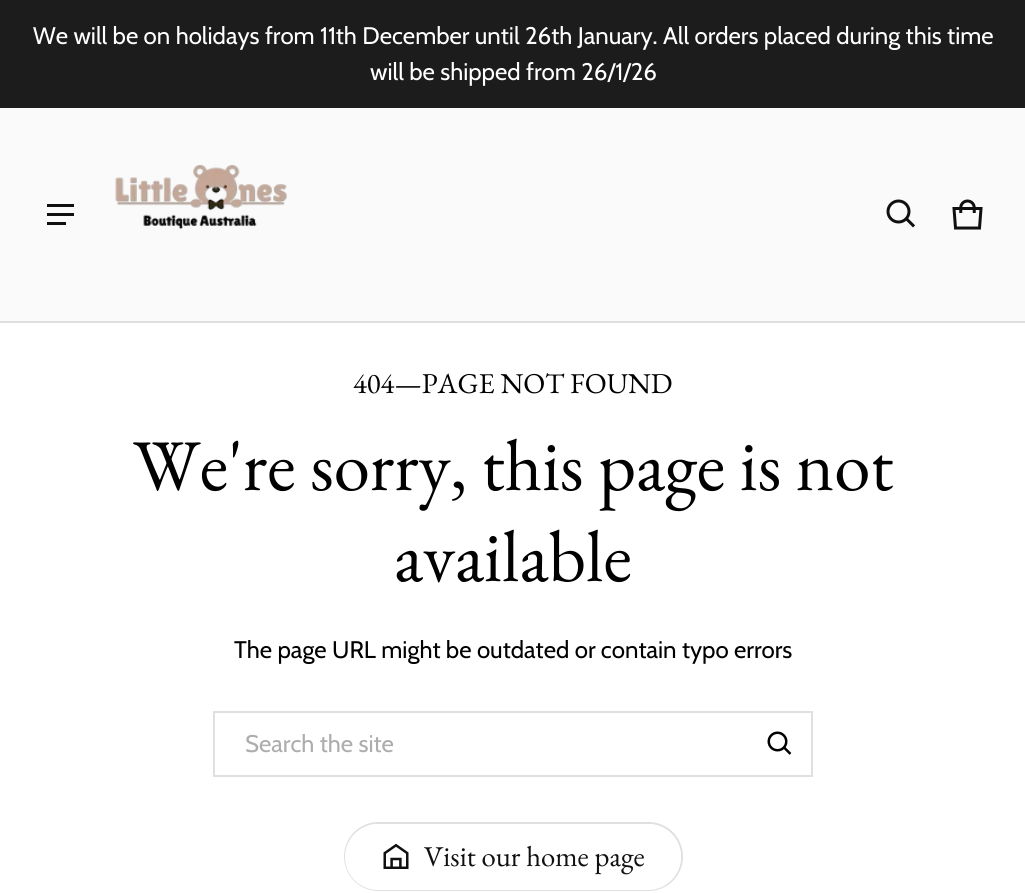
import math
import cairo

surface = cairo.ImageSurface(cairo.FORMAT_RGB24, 1025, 893)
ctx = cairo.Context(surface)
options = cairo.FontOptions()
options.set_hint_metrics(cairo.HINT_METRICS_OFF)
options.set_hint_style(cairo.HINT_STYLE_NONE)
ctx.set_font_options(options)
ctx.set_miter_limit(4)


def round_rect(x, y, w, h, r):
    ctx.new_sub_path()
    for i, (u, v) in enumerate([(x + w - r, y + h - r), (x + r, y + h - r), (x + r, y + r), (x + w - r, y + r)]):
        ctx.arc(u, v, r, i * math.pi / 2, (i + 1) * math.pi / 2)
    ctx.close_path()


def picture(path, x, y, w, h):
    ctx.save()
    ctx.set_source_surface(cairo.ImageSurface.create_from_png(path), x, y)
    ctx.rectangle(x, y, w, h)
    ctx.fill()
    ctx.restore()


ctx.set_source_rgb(1, 1, 1)
ctx.paint()
ctx.set_source_rgb(0.11, 0.11, 0.11)
ctx.rectangle(0, 0, 1025, 108)
ctx.fill()
ctx.select_font_face("Cabin")
ctx.set_font_size(24)
ctx.set_source_rgb(1, 1, 1)
ctx.move_to(33, 44)
ctx.show_text("We will be on holidays from 11th December until 26th January. All orders placed during this time")
ctx.move_to(370, 80)
ctx.show_text("will be shipped from 26/1/26")
ctx.set_source_rgb(0.98, 0.98, 0.98)
ctx.rectangle(0, 108, 1025, 213)
ctx.fill()
ctx.set_source_rgb(0.871, 0.871, 0.871)
ctx.rectangle(0, 321, 1025, 2)
ctx.fill()
ctx.set_source_rgb(0.063, 0.063, 0.063)
ctx.rectangle(47, 204, 27, 3)
ctx.fill()
ctx.rectangle(47, 213, 27, 3)
ctx.fill()
ctx.rectangle(47, 222, 19, 3)
ctx.fill()
picture("img1.png", 115, 164, 173, 66)
picture("img2.png", 886, 199, 29, 29)
picture("img3.png", 952, 199, 31, 31)
ctx.select_font_face("EB Garamond")
ctx.set_font_size(28.75)
ctx.set_source_rgb(0, 0, 0)
ctx.move_to(353, 393)
ctx.show_text("404—PAGE NOT FOUND")
ctx.set_font_size(72.9)
ctx.move_to(133, 490)
ctx.show_text("We're sorry, this page is not")
ctx.move_to(394, 581)
ctx.show_text("available")
ctx.select_font_face("Cabin")
ctx.set_font_size(24)
ctx.move_to(234, 658)
ctx.show_text("The page URL might be outdated or contain typo errors")
ctx.rectangle(214, 712, 598, 64)
ctx.set_source_rgb(0.878, 0.878, 0.878)
ctx.stroke()
ctx.set_source_rgb(0.678, 0.678, 0.678)
ctx.move_to(245, 752)
ctx.show_text("Search the site")
picture("img4.png", 767, 731, 25, 24)
round_rect(345, 823, 337, 67, 33.5)
ctx.set_source_rgb(0.878, 0.878, 0.878)
ctx.stroke()
ctx.set_source_rgb(1, 1, 1)
round_rect(345, 824, 336, 66, 33)
ctx.fill()
picture("img5.png", 383, 843, 26, 26)
ctx.select_font_face("EB Garamond")
ctx.set_font_size(28.75)
ctx.set_source_rgb(0.063, 0.063, 0.063)
ctx.move_to(424, 866)
ctx.show_text("Visit our home page")
surface.write_to_png("page.png")
